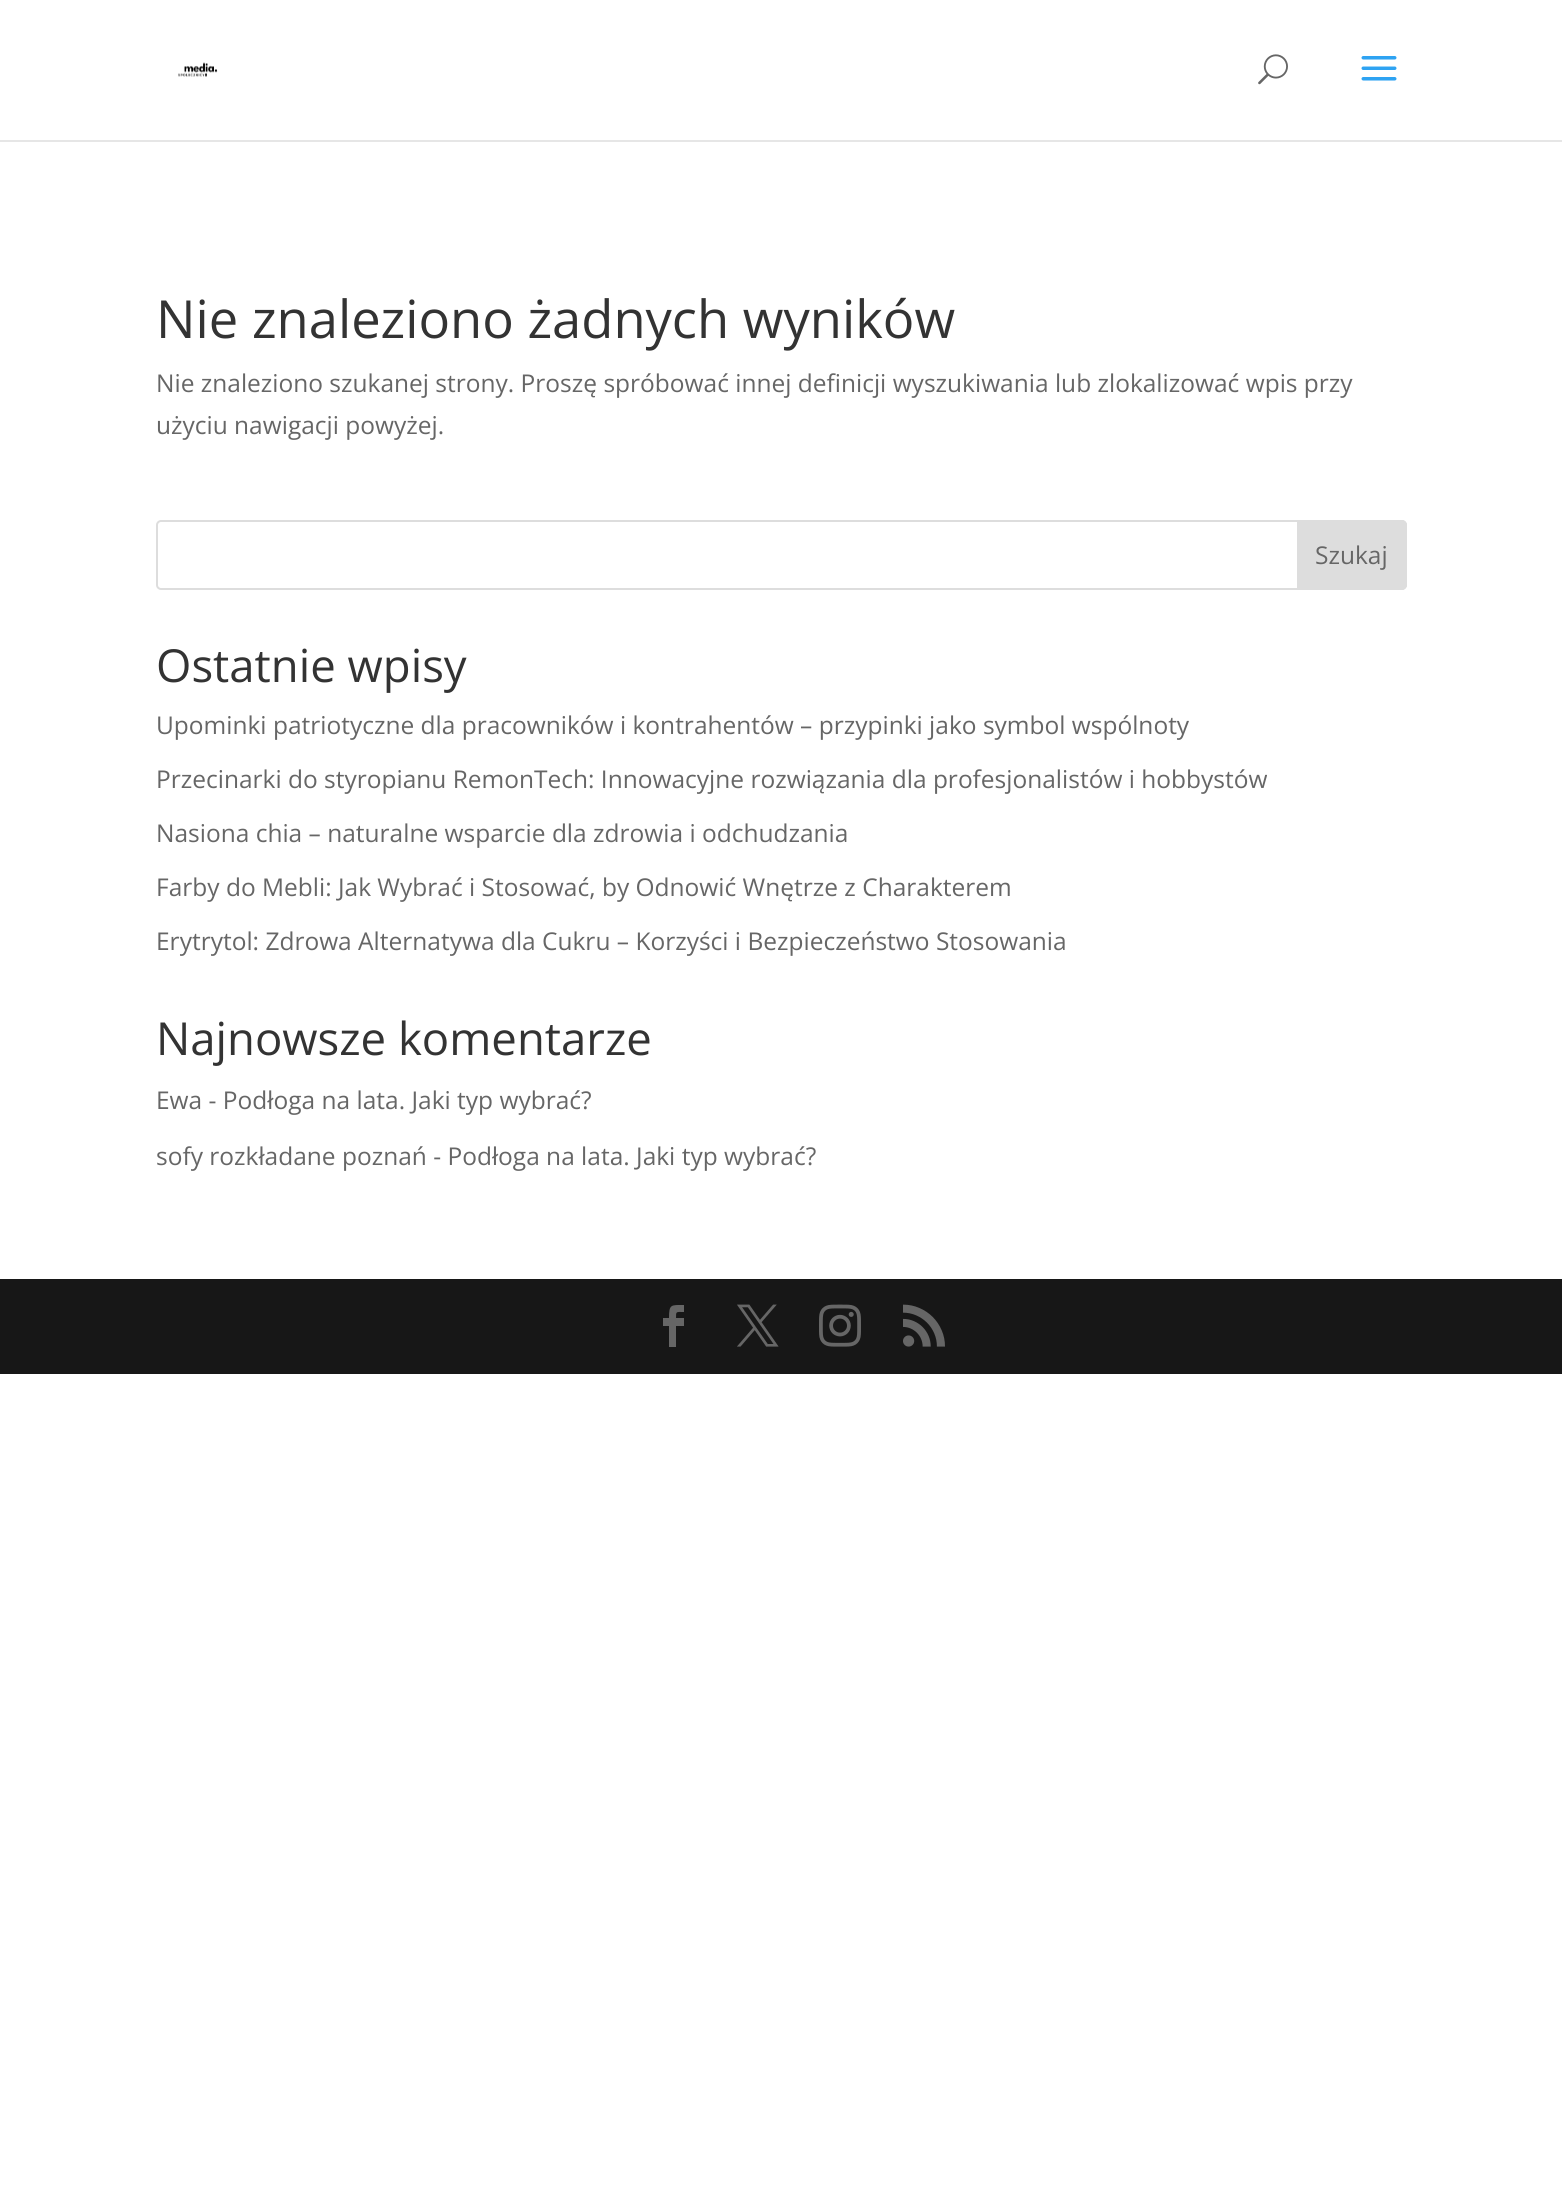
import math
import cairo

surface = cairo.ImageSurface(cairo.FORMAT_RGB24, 1562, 2186)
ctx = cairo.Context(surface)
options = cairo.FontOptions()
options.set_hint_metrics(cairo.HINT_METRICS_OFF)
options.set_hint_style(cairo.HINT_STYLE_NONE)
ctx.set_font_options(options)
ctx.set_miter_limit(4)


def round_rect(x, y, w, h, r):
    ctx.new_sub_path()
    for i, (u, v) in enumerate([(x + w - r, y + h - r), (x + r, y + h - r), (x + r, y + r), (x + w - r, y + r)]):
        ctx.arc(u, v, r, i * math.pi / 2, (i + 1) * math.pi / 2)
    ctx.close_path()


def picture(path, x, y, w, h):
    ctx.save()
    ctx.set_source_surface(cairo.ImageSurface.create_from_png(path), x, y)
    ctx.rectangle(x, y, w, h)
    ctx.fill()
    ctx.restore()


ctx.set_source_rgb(1, 1, 1)
ctx.paint()
ctx.set_source_rgb(0.902, 0.902, 0.902)
ctx.new_path()
ctx.move_to(0, 140)
ctx.line_to(0, 142)
ctx.line_to(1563, 142)
ctx.line_to(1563, 2)
ctx.line_to(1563, 140)
ctx.close_path()
ctx.fill()
picture("img1.png", 178, 62, 40, 15)
picture("img2.png", 1258, 54, 30, 31)
picture("img3.png", 1361, 56, 36, 25)
ctx.select_font_face("Open Sans")
ctx.set_font_size(52.5)
ctx.set_source_rgb(0.2, 0.2, 0.2)
ctx.move_to(156, 338)
ctx.show_text("Nie znaleziono żadnych wyników")
ctx.set_font_size(24.5)
ctx.set_source_rgb(0.4, 0.4, 0.4)
ctx.move_to(156, 392)
ctx.show_text("Nie znaleziono szukanej strony. Proszę spróbować innej definicji wyszukiwania lub zlokalizować wpis przy")
ctx.move_to(156, 434)
ctx.show_text("użyciu nawigacji powyżej.")
round_rect(157, 521, 1249, 68, 4)
ctx.set_source_rgb(0.867, 0.867, 0.867)
ctx.stroke()
ctx.new_path()
ctx.move_to(1298, 521)
ctx.line_to(1402, 521)
ctx.curve_to(1404, 521, 1406, 523, 1406, 525)
ctx.line_to(1406, 585)
ctx.curve_to(1406, 587, 1404, 589, 1402, 589)
ctx.line_to(1298, 589)
ctx.close_path()
ctx.fill_preserve()
ctx.stroke()
ctx.set_source_rgb(0.4, 0.4, 0.4)
ctx.move_to(1315, 564)
ctx.show_text("Szukaj")
ctx.set_font_size(45.5)
ctx.set_source_rgb(0.2, 0.2, 0.2)
ctx.move_to(156, 682)
ctx.show_text("Ostatnie wpisy")
ctx.set_font_size(24.5)
ctx.set_source_rgb(0.4, 0.4, 0.4)
ctx.move_to(156, 734)
ctx.show_text("Upominki patriotyczne dla pracowników i kontrahentów – przypinki jako symbol wspólnoty")
ctx.move_to(156, 788)
ctx.show_text("Przecinarki do styropianu RemonTech: Innowacyjne rozwiązania dla profesjonalistów i hobbystów")
ctx.move_to(156, 842)
ctx.show_text("Nasiona chia – naturalne wsparcie dla zdrowia i odchudzania")
ctx.move_to(156, 896)
ctx.show_text("Farby do Mebli: Jak Wybrać i Stosować, by Odnowić Wnętrze z Charakterem")
ctx.move_to(156, 950)
ctx.show_text("Erytrytol: Zdrowa Alternatywa dla Cukru – Korzyści i Bezpieczeństwo Stosowania")
ctx.set_font_size(45.5)
ctx.set_source_rgb(0.2, 0.2, 0.2)
ctx.move_to(156, 1055)
ctx.show_text("Najnowsze komentarze")
ctx.set_font_size(24.5)
ctx.set_source_rgb(0.4, 0.4, 0.4)
ctx.move_to(156, 1109)
ctx.show_text("Ewa - Podłoga na lata. Jaki typ wybrać?")
ctx.move_to(156, 1165)
ctx.show_text("sofy rozkładane poznań - Podłoga na lata. Jaki typ wybrać?")
ctx.set_source_rgb(0.09, 0.09, 0.09)
ctx.rectangle(0, 1279, 1562, 95)
ctx.fill()
ctx.set_source_rgb(0.4, 0.4, 0.4)
ctx.new_path()
ctx.move_to(669, 1347)
ctx.line_to(676, 1347)
ctx.line_to(676, 1326)
ctx.line_to(684, 1326)
ctx.line_to(684, 1318)
ctx.line_to(676, 1318)
ctx.curve_to(676, 1311, 676, 1312, 684, 1312)
ctx.line_to(684, 1305)
ctx.curve_to(671, 1305, 669, 1304, 669, 1318)
ctx.line_to(663, 1318)
ctx.line_to(663, 1326)
ctx.line_to(669, 1326)
ctx.close_path()
ctx.fill()
picture("img4.png", 737, 1304, 42, 43)
picture("img5.png", 819, 1304, 42, 43)
picture("img6.png", 903, 1304, 42, 43)
surface.write_to_png("page.png")
